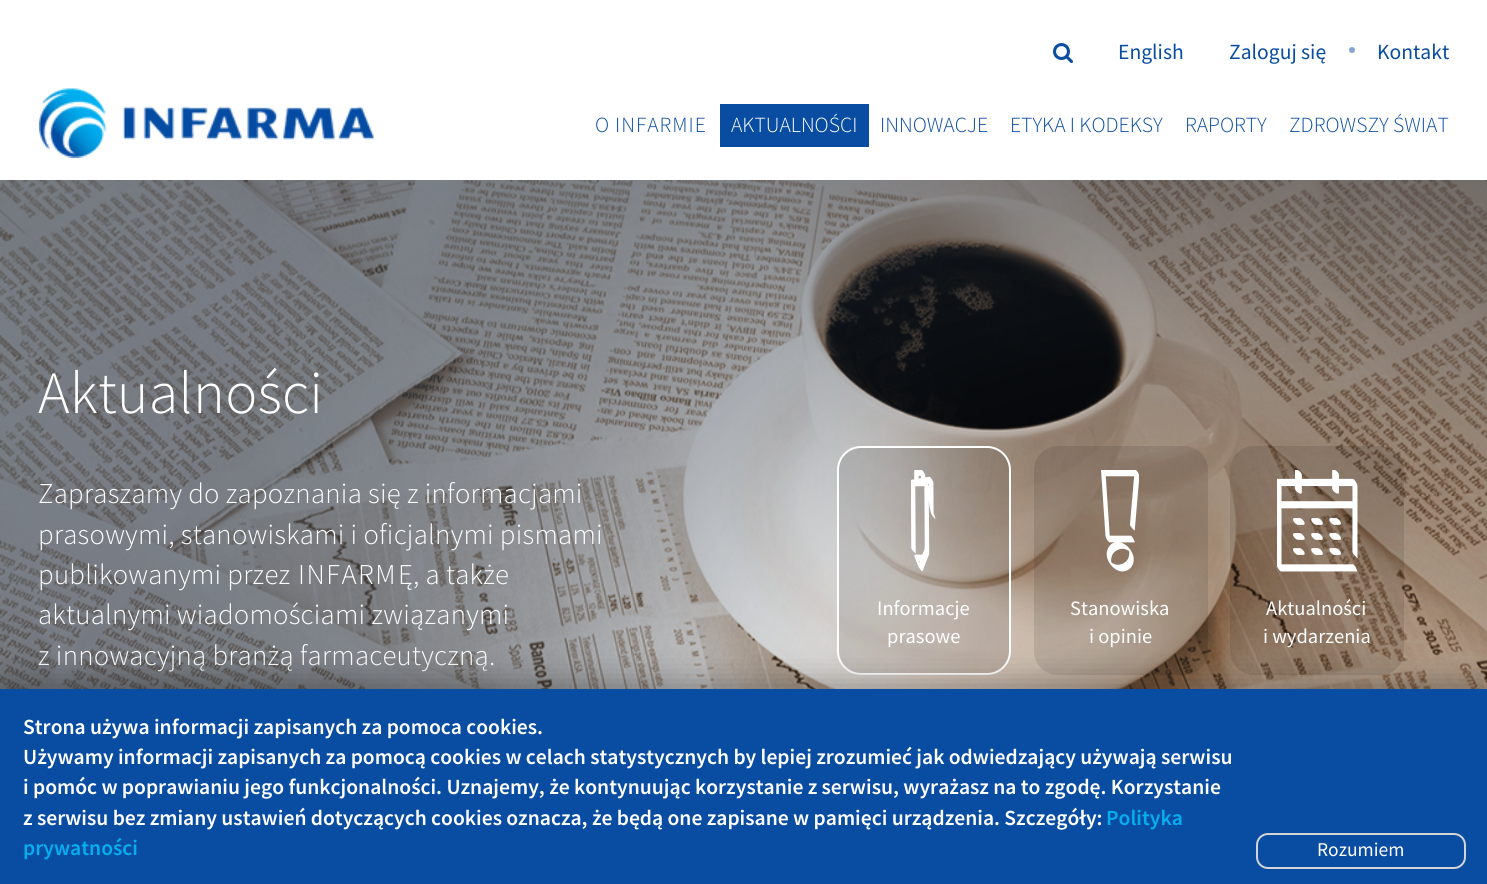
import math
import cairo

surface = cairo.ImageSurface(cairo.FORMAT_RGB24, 1487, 884)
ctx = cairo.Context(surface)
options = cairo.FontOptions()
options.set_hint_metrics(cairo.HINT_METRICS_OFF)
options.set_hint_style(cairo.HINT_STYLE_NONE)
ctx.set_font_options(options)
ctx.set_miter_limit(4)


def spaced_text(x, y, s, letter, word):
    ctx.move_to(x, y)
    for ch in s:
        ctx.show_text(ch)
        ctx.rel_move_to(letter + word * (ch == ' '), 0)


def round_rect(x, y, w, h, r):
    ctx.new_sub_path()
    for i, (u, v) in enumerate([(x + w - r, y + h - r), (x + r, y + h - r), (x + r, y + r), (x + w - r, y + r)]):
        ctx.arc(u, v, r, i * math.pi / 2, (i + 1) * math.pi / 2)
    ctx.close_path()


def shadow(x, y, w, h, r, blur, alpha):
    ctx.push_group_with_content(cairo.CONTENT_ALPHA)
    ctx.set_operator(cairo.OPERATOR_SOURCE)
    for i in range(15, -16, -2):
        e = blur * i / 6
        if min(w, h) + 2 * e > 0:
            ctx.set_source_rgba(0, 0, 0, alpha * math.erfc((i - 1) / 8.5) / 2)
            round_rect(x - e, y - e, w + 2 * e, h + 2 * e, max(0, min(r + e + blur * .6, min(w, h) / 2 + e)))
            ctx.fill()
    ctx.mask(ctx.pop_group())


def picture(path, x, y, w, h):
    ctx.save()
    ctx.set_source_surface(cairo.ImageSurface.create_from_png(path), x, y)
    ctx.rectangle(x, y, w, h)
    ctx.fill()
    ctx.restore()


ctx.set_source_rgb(1, 1, 1)
ctx.paint()
picture("img1.png", 1053, 43, 20, 21)
ctx.select_font_face("Source Sans Pro")
ctx.set_font_size(21.6)
ctx.set_source_rgb(0.039, 0.302, 0.635)
ctx.move_to(1118, 59)
ctx.show_text("English")
ctx.move_to(1229, 59)
ctx.show_text("Zaloguj się")
ctx.set_source_rgb(0.522, 0.651, 0.82)
ctx.new_path()
ctx.arc(1352, 50, 3, 0, 2 * math.pi)
ctx.fill()
ctx.set_source_rgb(0.039, 0.302, 0.635)
ctx.move_to(1377, 59)
ctx.show_text("Kontakt")
picture("img2.png", 39, 88, 335, 70)
ctx.select_font_face("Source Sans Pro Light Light")
ctx.move_to(595, 132)
ctx.show_text("O")
spaced_text(615, 132, "INFARMIE", 1, 0)
ctx.rectangle(720, 104, 149, 43)
ctx.fill()
ctx.set_source_rgb(1, 1, 1)
ctx.move_to(731, 132)
ctx.show_text("AKTUALNOŚCI")
ctx.set_source_rgb(0.039, 0.302, 0.635)
ctx.move_to(880, 132)
ctx.show_text("INNOWACJE")
ctx.move_to(1010, 132)
ctx.show_text("ETYKA I KODEKSY")
ctx.move_to(1185, 132)
ctx.show_text("RAPORTY")
ctx.move_to(1289, 132)
ctx.show_text("ZDROWSZY ŚWIAT")
picture("img3.png", 0, 180, 1487, 509)
picture("img4.png", 0, 180, 1487, 509)
ctx.set_font_size(60)
ctx.set_source_rgb(1, 1, 1)
spaced_text(38, 413, "Aktualności", 0.25, 0)
ctx.set_font_size(28.75)
spaced_text(38, 503, "Zapraszamy do zapoznania się z informacjami", 0.25, 0)
spaced_text(38, 544, "prasowymi, stanowiskami i oficjalnymi pismami", 0.25, 0)
spaced_text(38, 584, "publikowanymi przez", 0.25, 0)
spaced_text(298, 584, "INFARM", 1.5, 0)
spaced_text(398, 584, "Ę, a także", 0.25, 0)
spaced_text(38, 624, "aktualnymi wiadomościami związanymi", 0.25, 0)
spaced_text(38, 665, "z innowacyjną branżą farmaceutyczną.", 0.25, 0)
ctx.set_source_rgba(0, 0, 0, 0.1)
round_rect(838, 447, 172, 227, 23)
ctx.fill_preserve()
ctx.set_source_rgb(1, 1, 1)
ctx.stroke()
picture("img5.png", 911, 470, 25, 102)
ctx.select_font_face("Source Sans Pro")
ctx.set_font_size(20.5)
ctx.move_to(877, 615)
ctx.show_text("Informacje")
ctx.move_to(887, 643)
ctx.show_text("prasowe")
ctx.set_source_rgba(0, 0, 0, 0.1)
round_rect(1034, 446, 174, 229, 24)
ctx.fill()
picture("img6.png", 1101, 470, 38, 102)
ctx.set_source_rgb(1, 1, 1)
ctx.move_to(1070, 615)
ctx.show_text("Stanowiska")
ctx.move_to(1089, 643)
ctx.show_text("i opinie")
ctx.set_source_rgba(0, 0, 0, 0.1)
round_rect(1230, 446, 174, 229, 24)
ctx.fill()
picture("img7.png", 1277, 470, 81, 102)
ctx.set_source_rgb(1, 1, 1)
ctx.move_to(1266, 615)
ctx.show_text("Aktualności")
ctx.move_to(1263, 643)
ctx.show_text("i wydarzenia")
ctx.set_source_rgb(0, 0, 0)
shadow(0, 681, 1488, 197, 0, 15, 0.3)
ctx.set_source_rgb(0.039, 0.302, 0.635)
ctx.rectangle(0, 689, 1487, 195)
ctx.fill()
ctx.select_font_face("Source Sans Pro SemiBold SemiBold")
ctx.set_font_size(21.6)
ctx.set_source_rgb(1, 1, 1)
ctx.move_to(23, 734)
ctx.show_text("Strona używa informacji zapisanych za pomoca cookies.")
ctx.move_to(23, 764)
ctx.show_text("Używamy informacji zapisanych za pomocą cookies w celach statystycznych by lepiej zrozumieć jak odwiedzający używają serwisu")
ctx.move_to(23, 794)
ctx.show_text("i pomóc w poprawianiu jego funkcjonalności. Uznajemy, że kontynuując korzystanie z serwisu, wyrażasz na to zgodę. Korzystanie")
ctx.move_to(23, 825)
ctx.show_text("z serwisu bez zmiany ustawień dotyczących cookies oznacza, że będą one zapisane w pamięci urządzenia. Szczegóły:")
ctx.set_source_rgb(0.012, 0.686, 0.937)
ctx.move_to(1106, 825)
ctx.show_text("Polityka")
ctx.move_to(23, 855)
ctx.show_text("prywatności")
round_rect(1257, 834, 208, 34, 11)
ctx.set_source_rgb(0.831, 0.831, 0.831)
ctx.stroke()
ctx.select_font_face("Source Sans Pro")
ctx.set_font_size(19.5)
ctx.set_source_rgb(1, 1, 1)
ctx.move_to(1317, 856)
ctx.show_text("Rozumiem")
surface.write_to_png("page.png")
